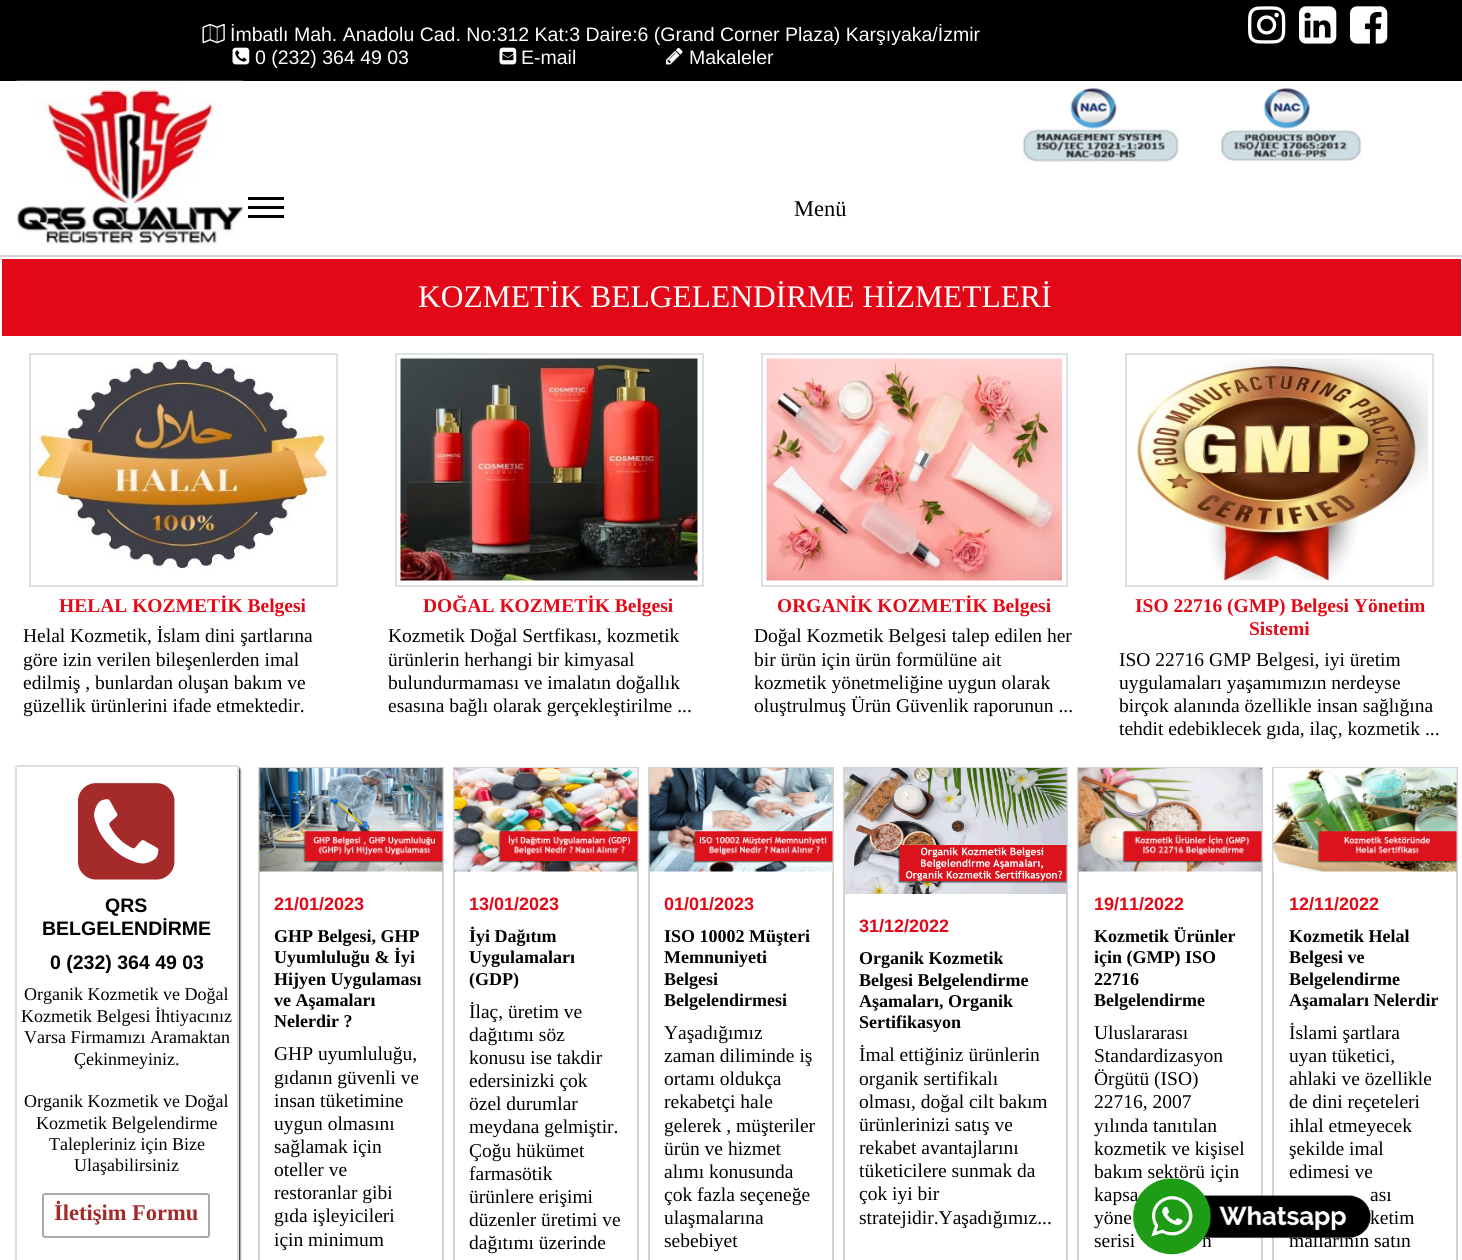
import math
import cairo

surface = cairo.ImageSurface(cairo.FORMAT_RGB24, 1462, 1260)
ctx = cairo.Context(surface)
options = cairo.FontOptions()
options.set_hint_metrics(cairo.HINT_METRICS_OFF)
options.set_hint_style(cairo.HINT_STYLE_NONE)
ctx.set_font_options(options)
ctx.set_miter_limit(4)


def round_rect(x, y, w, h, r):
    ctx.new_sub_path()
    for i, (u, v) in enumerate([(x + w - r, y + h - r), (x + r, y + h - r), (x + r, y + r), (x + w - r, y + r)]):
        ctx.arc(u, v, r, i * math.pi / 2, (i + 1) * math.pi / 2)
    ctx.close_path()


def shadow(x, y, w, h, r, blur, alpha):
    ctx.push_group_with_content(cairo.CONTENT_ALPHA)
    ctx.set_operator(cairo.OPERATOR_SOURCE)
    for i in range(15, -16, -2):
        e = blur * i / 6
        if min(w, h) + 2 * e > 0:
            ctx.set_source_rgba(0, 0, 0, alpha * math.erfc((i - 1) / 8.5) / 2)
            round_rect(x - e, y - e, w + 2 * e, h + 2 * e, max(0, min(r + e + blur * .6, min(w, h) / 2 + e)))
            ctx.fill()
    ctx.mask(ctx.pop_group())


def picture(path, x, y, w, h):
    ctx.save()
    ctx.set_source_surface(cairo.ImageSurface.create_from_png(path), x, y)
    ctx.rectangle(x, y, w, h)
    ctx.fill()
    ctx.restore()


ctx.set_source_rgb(1, 1, 1)
ctx.paint()
ctx.set_source_rgb(0, 0, 0)
ctx.rectangle(0, 0, 1462, 81)
ctx.fill()
picture("img1.png", 202, 23, 23, 21)
ctx.select_font_face("Liberation Sans")
ctx.set_font_size(19.5)
ctx.set_source_rgb(1, 1, 1)
ctx.move_to(230, 41)
ctx.show_text("İmbatlı Mah. Anadolu Cad. No:312 Kat:3 Daire:6 (Grand Corner Plaza) Karşıyaka/İzmir")
picture("img2.png", 232, 47, 18, 18)
ctx.move_to(255, 64)
ctx.show_text("0 (232) 364 49 03")
picture("img3.png", 499, 47, 18, 18)
ctx.move_to(521, 64)
ctx.show_text("E-mail")
picture("img4.png", 666, 47, 17, 18)
ctx.move_to(689, 64)
ctx.show_text("Makaleler")
picture("img5.png", 1248, 6, 38, 38)
picture("img6.png", 1299, 6, 38, 38)
picture("img7.png", 1350, 6, 38, 38)
ctx.set_source_rgb(0.827, 0.827, 0.827)
ctx.rectangle(0, 255, 1462, 2)
ctx.fill()
picture("img8.png", 16, 80, 228, 165)
picture("img9.png", 1022, 88, 340, 74)
ctx.set_source_rgb(1, 1, 1)
ctx.rectangle(243, 206, 1, 4)
ctx.fill()
ctx.set_source_rgb(0, 0, 0)
ctx.rectangle(248, 197, 36, 3)
ctx.fill()
ctx.rectangle(248, 206, 36, 3)
ctx.fill()
ctx.rectangle(248, 215, 36, 3)
ctx.fill()
ctx.select_font_face("Liberation Serif")
ctx.set_font_size(22.5)
ctx.move_to(794, 216)
ctx.show_text("Menü")
ctx.set_source_rgb(0.89, 0.035, 0.09)
ctx.rectangle(2, 259, 1459, 77)
ctx.fill()
ctx.set_font_size(31.5)
ctx.set_source_rgb(1, 1, 1)
ctx.move_to(418, 307)
ctx.show_text("KOZMETİK BELGELENDİRME HİZMETLERİ")
ctx.rectangle(30, 354, 307, 232)
ctx.set_source_rgb(0.871, 0.886, 0.902)
ctx.stroke()
picture("img10.png", 34, 358, 298, 217)
ctx.select_font_face("Liberation Serif", cairo.FONT_SLANT_NORMAL, cairo.FONT_WEIGHT_BOLD)
ctx.set_font_size(19.5)
ctx.set_source_rgb(0.89, 0.039, 0.09)
ctx.move_to(59, 612)
ctx.show_text("HELAL KOZMETİK Belgesi")
ctx.select_font_face("Liberation Serif")
ctx.set_source_rgb(0, 0, 0)
ctx.move_to(23, 642)
ctx.show_text("Helal Kozmetik, İslam dini şartlarına")
ctx.move_to(23, 666)
ctx.show_text("göre izin verilen bileşenlerden imal")
ctx.move_to(23, 689)
ctx.show_text("edilmiş , bunlardan oluşan bakım ve")
ctx.move_to(23, 712)
ctx.show_text("güzellik ürünlerini ifade etmektedir.")
ctx.rectangle(396, 354, 307, 232)
ctx.set_source_rgb(0.871, 0.886, 0.902)
ctx.stroke()
picture("img11.png", 400, 358, 298, 223)
ctx.select_font_face("Liberation Serif", cairo.FONT_SLANT_NORMAL, cairo.FONT_WEIGHT_BOLD)
ctx.set_source_rgb(0.89, 0.039, 0.09)
ctx.move_to(423, 612)
ctx.show_text("DOĞAL KOZMETİK Belgesi")
ctx.select_font_face("Liberation Serif")
ctx.set_source_rgb(0, 0, 0)
ctx.move_to(388, 642)
ctx.show_text("Kozmetik Doğal Sertfikası, kozmetik")
ctx.move_to(388, 666)
ctx.show_text("ürünlerin herhangi bir kimyasal")
ctx.move_to(388, 689)
ctx.show_text("bulundurmaması ve imalatın doğallık")
ctx.move_to(388, 712)
ctx.show_text("esasına bağlı olarak gerçekleştirilme ...")
ctx.rectangle(762, 354, 305, 232)
ctx.set_source_rgb(0.871, 0.886, 0.902)
ctx.stroke()
picture("img12.png", 766, 358, 296, 223)
ctx.select_font_face("Liberation Serif", cairo.FONT_SLANT_NORMAL, cairo.FONT_WEIGHT_BOLD)
ctx.set_source_rgb(0.89, 0.039, 0.09)
ctx.move_to(777, 612)
ctx.show_text("ORGANİK KOZMETİK Belgesi")
ctx.select_font_face("Liberation Serif")
ctx.set_source_rgb(0, 0, 0)
ctx.move_to(754, 642)
ctx.show_text("Doğal Kozmetik Belgesi talep edilen her")
ctx.move_to(754, 666)
ctx.show_text("bir ürün için ürün formülüne ait")
ctx.move_to(754, 689)
ctx.show_text("kozmetik yönetmeliğine uygun olarak")
ctx.move_to(754, 712)
ctx.show_text("oluştrulmuş Ürün Güvenlik raporunun ...")
ctx.rectangle(1126, 354, 307, 232)
ctx.set_source_rgb(0.871, 0.886, 0.902)
ctx.stroke()
picture("img13.png", 1131, 358, 297, 223)
ctx.select_font_face("Liberation Serif", cairo.FONT_SLANT_NORMAL, cairo.FONT_WEIGHT_BOLD)
ctx.set_source_rgb(0.89, 0.039, 0.09)
ctx.move_to(1135, 612)
ctx.show_text("ISO 22716 (GMP) Belgesi Yönetim")
ctx.move_to(1249, 635)
ctx.show_text("Sistemi")
ctx.select_font_face("Liberation Serif")
ctx.set_source_rgb(0, 0, 0)
ctx.move_to(1119, 666)
ctx.show_text("ISO 22716 GMP Belgesi, iyi üretim")
ctx.move_to(1119, 689)
ctx.show_text("uygulamaları yaşamımızın nerdeyse")
ctx.move_to(1119, 712)
ctx.show_text("birçok alanında özellikle insan sağlığına")
ctx.move_to(1119, 735)
ctx.show_text("tehdit edebiklecek gıda, ilaç, kozmetik ...")
ctx.set_source_rgb(0, 0, 0)
shadow(17, 767, 223, 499, 3, 1, 1)
ctx.set_source_rgb(1, 1, 1)
round_rect(16, 766, 222, 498, 2)
ctx.fill_preserve()
ctx.set_source_rgb(0.871, 0.871, 0.871)
ctx.stroke()
picture("img14.png", 78, 783, 97, 97)
ctx.select_font_face("Liberation Sans", cairo.FONT_SLANT_NORMAL, cairo.FONT_WEIGHT_BOLD)
ctx.set_source_rgb(0, 0, 0)
ctx.move_to(105, 912)
ctx.show_text("QRS")
ctx.move_to(42, 935)
ctx.show_text("BELGELENDİRME")
ctx.move_to(50, 969)
ctx.show_text("0 (232) 364 49 03")
ctx.select_font_face("Liberation Serif")
ctx.set_font_size(18)
ctx.move_to(24, 1000)
ctx.show_text("Organik Kozmetik ve Doğal")
ctx.move_to(21, 1022)
ctx.show_text("Kozmetik Belgesi İhtiyacınız")
ctx.move_to(24, 1043)
ctx.show_text("Varsa Firmamızı Aramaktan")
ctx.move_to(74, 1065)
ctx.show_text("Çekinmeyiniz.")
ctx.move_to(24, 1107)
ctx.show_text("Organik Kozmetik ve Doğal")
ctx.move_to(36, 1129)
ctx.show_text("Kozmetik Belgelendirme")
ctx.move_to(49, 1150)
ctx.show_text("Talepleriniz için Bize")
ctx.move_to(74, 1171)
ctx.show_text("Ulaşabilirsiniz")
round_rect(43, 1194, 166, 43, 2)
ctx.set_source_rgb(0.663, 0.663, 0.663)
ctx.stroke()
ctx.select_font_face("Liberation Serif", cairo.FONT_SLANT_NORMAL, cairo.FONT_WEIGHT_BOLD)
ctx.set_font_size(22.5)
ctx.set_source_rgb(0.647, 0.165, 0.165)
ctx.move_to(54, 1220)
ctx.show_text("İletişim Formu")
ctx.rectangle(259, 768, 184, 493)
ctx.set_source_rgb(0.827, 0.827, 0.827)
ctx.stroke()
picture("img15.png", 259, 768, 184, 104)
ctx.select_font_face("Liberation Sans", cairo.FONT_SLANT_NORMAL, cairo.FONT_WEIGHT_BOLD)
ctx.set_font_size(18)
ctx.set_source_rgb(0.89, 0.039, 0.09)
ctx.move_to(274, 910)
ctx.show_text("21/01/2023")
ctx.select_font_face("Liberation Serif", cairo.FONT_SLANT_NORMAL, cairo.FONT_WEIGHT_BOLD)
ctx.set_source_rgb(0, 0, 0)
ctx.move_to(274, 942)
ctx.show_text("GHP Belgesi, GHP")
ctx.move_to(274, 963)
ctx.show_text("Uyumluluğu & İyi")
ctx.move_to(274, 985)
ctx.show_text("Hijyen Uygulaması")
ctx.move_to(274, 1006)
ctx.show_text("ve Aşamaları")
ctx.move_to(274, 1027)
ctx.show_text("Nelerdir ?")
ctx.select_font_face("Liberation Serif")
ctx.set_font_size(19.5)
ctx.move_to(274, 1060)
ctx.show_text("GHP uyumluluğu,")
ctx.move_to(274, 1084)
ctx.show_text("gıdanın güvenli ve")
ctx.move_to(274, 1107)
ctx.show_text("insan tüketimine")
ctx.move_to(274, 1130)
ctx.show_text("uygun olmasını")
ctx.move_to(274, 1153)
ctx.show_text("sağlamak için")
ctx.move_to(274, 1176)
ctx.show_text("oteller ve")
ctx.move_to(274, 1199)
ctx.show_text("restoranlar gibi")
ctx.move_to(274, 1222)
ctx.show_text("gıda işleyicileri")
ctx.move_to(274, 1246)
ctx.show_text("için minimum")
ctx.rectangle(454, 768, 184, 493)
ctx.set_source_rgb(0.827, 0.827, 0.827)
ctx.stroke()
picture("img16.png", 454, 768, 184, 104)
ctx.select_font_face("Liberation Sans", cairo.FONT_SLANT_NORMAL, cairo.FONT_WEIGHT_BOLD)
ctx.set_font_size(18)
ctx.set_source_rgb(0.89, 0.039, 0.09)
ctx.move_to(469, 910)
ctx.show_text("13/01/2023")
ctx.select_font_face("Liberation Serif", cairo.FONT_SLANT_NORMAL, cairo.FONT_WEIGHT_BOLD)
ctx.set_source_rgb(0, 0, 0)
ctx.move_to(469, 942)
ctx.show_text("İyi Dağıtım")
ctx.move_to(469, 963)
ctx.show_text("Uygulamaları")
ctx.move_to(469, 985)
ctx.show_text("(GDP)")
ctx.select_font_face("Liberation Serif")
ctx.set_font_size(19.5)
ctx.move_to(469, 1018)
ctx.show_text("İlaç, üretim ve")
ctx.move_to(469, 1041)
ctx.show_text("dağıtımı söz")
ctx.move_to(469, 1064)
ctx.show_text("konusu ise takdir")
ctx.move_to(469, 1087)
ctx.show_text("edersinizki çok")
ctx.move_to(469, 1110)
ctx.show_text("özel durumlar")
ctx.move_to(469, 1133)
ctx.show_text("meydana gelmiştir.")
ctx.move_to(469, 1157)
ctx.show_text("Çoğu hükümet")
ctx.move_to(469, 1180)
ctx.show_text("farmasötik")
ctx.move_to(469, 1203)
ctx.show_text("ürünlere erişimi")
ctx.move_to(469, 1226)
ctx.show_text("düzenler üretimi ve")
ctx.move_to(469, 1249)
ctx.show_text("dağıtımı üzerinde")
ctx.rectangle(649, 768, 184, 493)
ctx.set_source_rgb(0.827, 0.827, 0.827)
ctx.stroke()
picture("img17.png", 649, 768, 184, 104)
ctx.select_font_face("Liberation Sans", cairo.FONT_SLANT_NORMAL, cairo.FONT_WEIGHT_BOLD)
ctx.set_font_size(18)
ctx.set_source_rgb(0.89, 0.039, 0.09)
ctx.move_to(664, 910)
ctx.show_text("01/01/2023")
ctx.select_font_face("Liberation Serif", cairo.FONT_SLANT_NORMAL, cairo.FONT_WEIGHT_BOLD)
ctx.set_source_rgb(0, 0, 0)
ctx.move_to(664, 942)
ctx.show_text("ISO 10002 Müşteri")
ctx.move_to(664, 963)
ctx.show_text("Memnuniyeti")
ctx.move_to(664, 985)
ctx.show_text("Belgesi")
ctx.move_to(664, 1006)
ctx.show_text("Belgelendirmesi")
ctx.select_font_face("Liberation Serif")
ctx.set_font_size(19.5)
ctx.move_to(664, 1039)
ctx.show_text("Yaşadığımız")
ctx.move_to(664, 1062)
ctx.show_text("zaman diliminde iş")
ctx.move_to(664, 1085)
ctx.show_text("ortamı oldukça")
ctx.move_to(664, 1108)
ctx.show_text("rekabetçi hale")
ctx.move_to(664, 1132)
ctx.show_text("gelerek , müşteriler")
ctx.move_to(664, 1155)
ctx.show_text("ürün ve hizmet")
ctx.move_to(664, 1178)
ctx.show_text("alımı konusunda")
ctx.move_to(664, 1201)
ctx.show_text("çok fazla seçeneğe")
ctx.move_to(664, 1224)
ctx.show_text("ulaşmalarına")
ctx.move_to(664, 1247)
ctx.show_text("sebebiyet")
ctx.rectangle(844, 768, 223, 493)
ctx.set_source_rgb(0.827, 0.827, 0.827)
ctx.stroke()
picture("img18.png", 844, 768, 223, 126)
ctx.select_font_face("Liberation Sans", cairo.FONT_SLANT_NORMAL, cairo.FONT_WEIGHT_BOLD)
ctx.set_font_size(18)
ctx.set_source_rgb(0.89, 0.039, 0.09)
ctx.move_to(859, 932)
ctx.show_text("31/12/2022")
ctx.select_font_face("Liberation Serif", cairo.FONT_SLANT_NORMAL, cairo.FONT_WEIGHT_BOLD)
ctx.set_source_rgb(0, 0, 0)
ctx.move_to(859, 964)
ctx.show_text("Organik Kozmetik")
ctx.move_to(859, 986)
ctx.show_text("Belgesi Belgelendirme")
ctx.move_to(859, 1007)
ctx.show_text("Aşamaları, Organik")
ctx.move_to(859, 1028)
ctx.show_text("Sertifikasyon")
ctx.select_font_face("Liberation Serif")
ctx.set_font_size(19.5)
ctx.move_to(859, 1061)
ctx.show_text("İmal ettiğiniz ürünlerin")
ctx.move_to(859, 1085)
ctx.show_text("organik sertifikalı")
ctx.move_to(859, 1108)
ctx.show_text("olması, doğal cilt bakım")
ctx.move_to(859, 1131)
ctx.show_text("ürünlerinizi satış ve")
ctx.move_to(859, 1154)
ctx.show_text("rekabet avantajlarını")
ctx.move_to(859, 1177)
ctx.show_text("tüketicilere sunmak da")
ctx.move_to(859, 1200)
ctx.show_text("çok iyi bir")
ctx.move_to(859, 1224)
ctx.show_text("stratejidir.Yaşadığımız...")
ctx.rectangle(1078, 768, 184, 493)
ctx.set_source_rgb(0.827, 0.827, 0.827)
ctx.stroke()
picture("img19.png", 1078, 768, 184, 104)
ctx.select_font_face("Liberation Sans", cairo.FONT_SLANT_NORMAL, cairo.FONT_WEIGHT_BOLD)
ctx.set_font_size(18)
ctx.set_source_rgb(0.89, 0.039, 0.09)
ctx.move_to(1094, 910)
ctx.show_text("19/11/2022")
ctx.select_font_face("Liberation Serif", cairo.FONT_SLANT_NORMAL, cairo.FONT_WEIGHT_BOLD)
ctx.set_source_rgb(0, 0, 0)
ctx.move_to(1094, 942)
ctx.show_text("Kozmetik Ürünler")
ctx.move_to(1094, 963)
ctx.show_text("için (GMP) ISO")
ctx.move_to(1094, 985)
ctx.show_text("22716")
ctx.move_to(1094, 1006)
ctx.show_text("Belgelendirme")
ctx.select_font_face("Liberation Serif")
ctx.set_font_size(19.5)
ctx.move_to(1094, 1039)
ctx.show_text("Uluslararası")
ctx.move_to(1094, 1062)
ctx.show_text("Standardizasyon")
ctx.move_to(1094, 1085)
ctx.show_text("Örgütü (ISO)")
ctx.move_to(1094, 1108)
ctx.show_text("22716, 2007")
ctx.move_to(1094, 1132)
ctx.show_text("yılında tanıtılan")
ctx.move_to(1094, 1155)
ctx.show_text("kozmetik ve kişisel")
ctx.move_to(1094, 1178)
ctx.show_text("bakım sektörü için")
ctx.move_to(1094, 1201)
ctx.show_text("kapsa")
ctx.move_to(1094, 1224)
ctx.show_text("yöne")
ctx.move_to(1094, 1247)
ctx.show_text("serisi")
ctx.move_to(1202, 1247)
ctx.show_text("n")
ctx.rectangle(1273, 768, 184, 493)
ctx.set_source_rgb(0.827, 0.827, 0.827)
ctx.stroke()
picture("img20.png", 1273, 768, 184, 104)
ctx.select_font_face("Liberation Sans", cairo.FONT_SLANT_NORMAL, cairo.FONT_WEIGHT_BOLD)
ctx.set_font_size(18)
ctx.set_source_rgb(0.89, 0.039, 0.09)
ctx.move_to(1289, 910)
ctx.show_text("12/11/2022")
ctx.select_font_face("Liberation Serif", cairo.FONT_SLANT_NORMAL, cairo.FONT_WEIGHT_BOLD)
ctx.set_source_rgb(0, 0, 0)
ctx.move_to(1289, 942)
ctx.show_text("Kozmetik Helal")
ctx.move_to(1289, 963)
ctx.show_text("Belgesi ve")
ctx.move_to(1289, 985)
ctx.show_text("Belgelendirme")
ctx.move_to(1289, 1006)
ctx.show_text("Aşamaları Nelerdir")
ctx.select_font_face("Liberation Serif")
ctx.set_font_size(19.5)
ctx.move_to(1289, 1039)
ctx.show_text("İslami şartlara")
ctx.move_to(1289, 1062)
ctx.show_text("uyan tüketici,")
ctx.move_to(1289, 1085)
ctx.show_text("ahlaki ve özellikle")
ctx.move_to(1289, 1108)
ctx.show_text("de dini reçeteleri")
ctx.move_to(1289, 1132)
ctx.show_text("ihlal etmeyecek")
ctx.move_to(1289, 1155)
ctx.show_text("şekilde imal")
ctx.move_to(1289, 1178)
ctx.show_text("edimesi ve")
ctx.move_to(1370, 1201)
ctx.show_text("ası")
ctx.move_to(1370, 1224)
ctx.show_text("ketim")
ctx.move_to(1289, 1247)
ctx.show_text("mallarının satın")
picture("img21.png", 1132, 1178, 239, 77)
surface.write_to_png("page.png")
